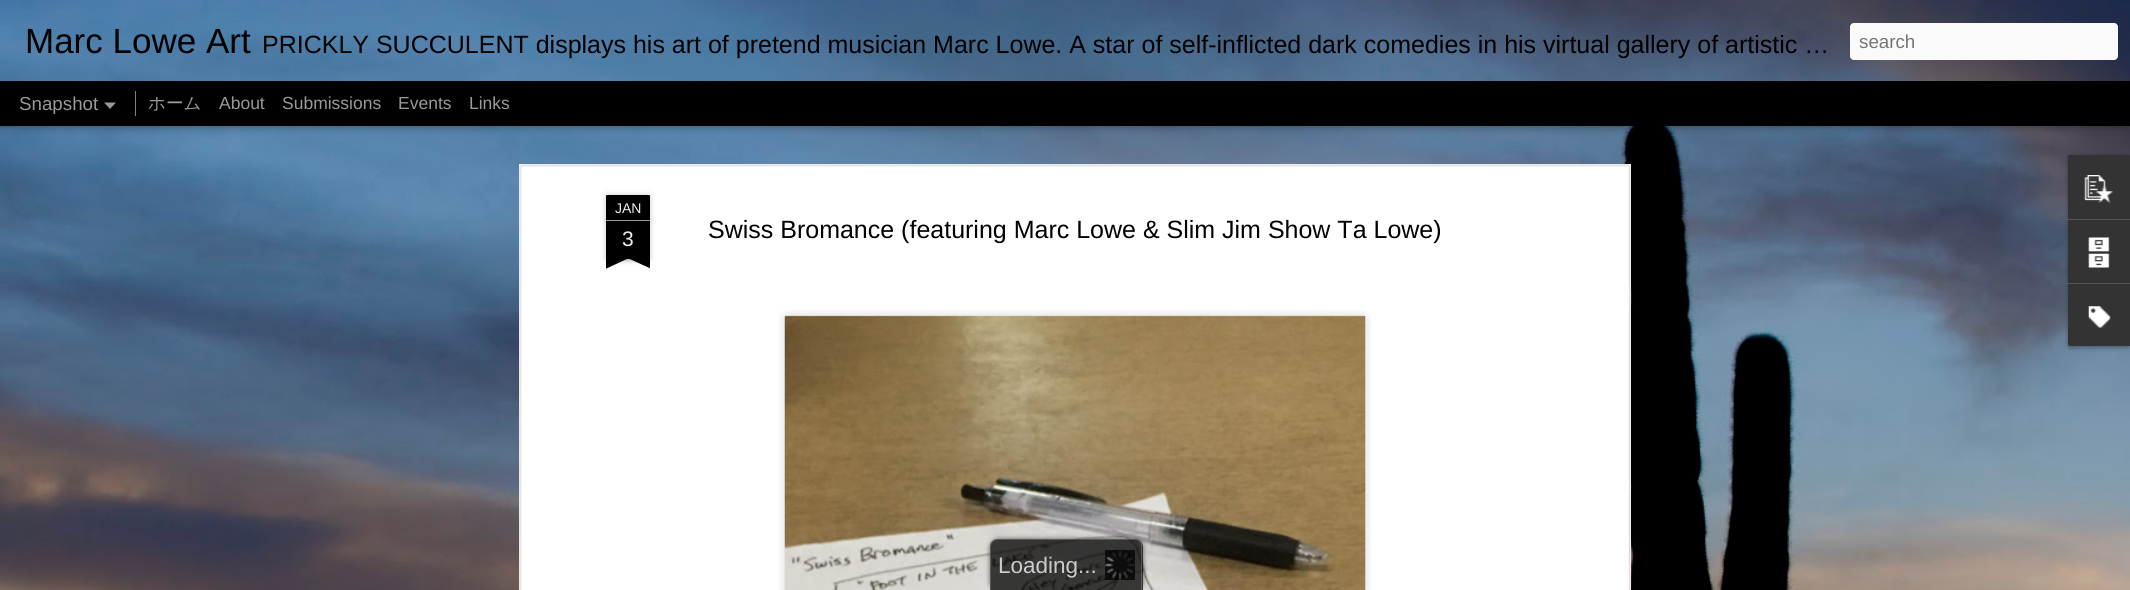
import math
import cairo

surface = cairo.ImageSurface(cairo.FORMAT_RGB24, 2130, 590)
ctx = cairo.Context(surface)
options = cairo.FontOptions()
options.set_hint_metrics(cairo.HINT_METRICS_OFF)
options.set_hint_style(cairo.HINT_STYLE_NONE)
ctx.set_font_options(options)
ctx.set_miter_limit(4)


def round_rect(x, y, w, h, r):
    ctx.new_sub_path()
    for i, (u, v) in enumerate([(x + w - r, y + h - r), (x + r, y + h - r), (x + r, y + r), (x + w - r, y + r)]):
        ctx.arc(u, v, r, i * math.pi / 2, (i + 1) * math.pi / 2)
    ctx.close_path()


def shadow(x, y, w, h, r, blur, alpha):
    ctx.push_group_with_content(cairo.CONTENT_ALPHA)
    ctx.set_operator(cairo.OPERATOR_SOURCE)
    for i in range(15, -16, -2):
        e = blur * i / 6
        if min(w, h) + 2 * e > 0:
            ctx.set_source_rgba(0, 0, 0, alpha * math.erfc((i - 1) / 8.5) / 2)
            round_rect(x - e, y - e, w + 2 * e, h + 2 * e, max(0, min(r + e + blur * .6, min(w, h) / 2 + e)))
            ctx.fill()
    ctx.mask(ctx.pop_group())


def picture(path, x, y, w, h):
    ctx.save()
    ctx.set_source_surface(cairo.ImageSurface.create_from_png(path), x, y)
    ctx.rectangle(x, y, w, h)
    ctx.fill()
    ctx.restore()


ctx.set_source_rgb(0, 0, 0)
ctx.paint()
picture("img2.png", 0, 126, 2130, 464)
shadow(0, 81, 2130, 44, 0, 5, 0.5)
picture("img1.png", 0, 0, 2130, 81)
ctx.select_font_face("Liberation Sans")
ctx.set_font_size(35)
ctx.set_source_rgb(0, 0, 0)
ctx.move_to(25, 53)
ctx.show_text("Marc Lowe Art")
ctx.set_font_size(25)
ctx.move_to(262, 53)
ctx.show_text("PRICKLY SUCCULENT displays his art of pretend musician Marc Lowe. A star of self-inflicted dark comedies in his virtual gallery of artistic …")
ctx.set_source_rgb(0.98, 0.98, 0.98)
round_rect(1850, 23, 268, 37, 4)
ctx.fill()
ctx.set_font_size(18.75)
ctx.set_source_rgb(0.459, 0.459, 0.459)
ctx.move_to(1859, 48)
ctx.show_text("search")
ctx.set_source_rgb(0.6, 0.6, 0.6)
ctx.move_to(19, 110)
ctx.show_text("Snapshot")
ctx.new_path()
ctx.move_to(104, 102.5)
ctx.line_to(116, 102.5)
ctx.line_to(110, 109)
ctx.close_path()
ctx.fill()
ctx.set_source_rgb(0.502, 0.502, 0.502)
ctx.rectangle(135, 91, 1, 25)
ctx.fill()
ctx.select_font_face("WenQuanYi Zen Hei Medium")
ctx.set_font_size(17.5)
ctx.set_source_rgb(0.6, 0.6, 0.6)
ctx.move_to(148, 109)
ctx.show_text("ホーム")
ctx.select_font_face("Liberation Sans")
ctx.move_to(219, 109)
ctx.show_text("About")
ctx.move_to(282, 109)
ctx.show_text("Submissions")
ctx.move_to(398, 109)
ctx.show_text("Events")
ctx.move_to(469, 109)
ctx.show_text("Links")
ctx.set_source_rgb(1, 1, 1)
ctx.rectangle(519, 164, 1112, 426)
ctx.fill()
picture("img3.png", 519, 164, 1113, 426)
ctx.set_source_rgb(0, 0, 0)
shadow(606, 221, 44, 38, 0, 3, 0.2)
ctx.set_source_rgb(0, 0, 0)
ctx.rectangle(606, 221, 44, 38)
ctx.fill()
ctx.set_source_rgb(0, 0, 0)
shadow(606, 195, 44, 26, 1, 3, 0.2)
ctx.set_source_rgb(0, 0, 0)
ctx.new_path()
ctx.move_to(607, 195)
ctx.line_to(649, 195)
ctx.curve_to(649.5, 195, 650, 195.5, 650, 196)
ctx.line_to(650, 221)
ctx.line_to(606, 221)
ctx.line_to(606, 196)
ctx.curve_to(606, 195.5, 606.5, 195, 607, 195)
ctx.close_path()
ctx.fill()
ctx.set_source_rgb(0.6, 0.6, 0.6)
ctx.rectangle(606, 220, 44, 1)
ctx.fill()
ctx.set_font_size(14)
ctx.set_source_rgb(0.933, 0.933, 0.933)
ctx.move_to(615, 213)
ctx.show_text("JAN")
ctx.set_font_size(21)
ctx.move_to(622, 246)
ctx.show_text("3")
ctx.save()
ctx.rectangle(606, 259, 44, 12)
ctx.clip()
ctx.set_source_rgb(0, 0, 0)
shadow(595, 246, 63, 13, 0, 3, 0.2)
ctx.restore()
ctx.save()
ctx.rectangle(606, 259, 44, 12)
ctx.clip()
ctx.set_source_rgb(0, 0, 0)
ctx.new_path()
ctx.move_to(595, 260)
ctx.line_to(652, 234)
ctx.line_to(657, 245)
ctx.line_to(601, 271)
ctx.close_path()
ctx.fill()
ctx.restore()
ctx.save()
ctx.rectangle(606, 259, 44, 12)
ctx.clip()
ctx.set_source_rgb(0, 0, 0)
shadow(599, 246, 62, 13, 0, 3, 0.2)
ctx.restore()
ctx.save()
ctx.rectangle(606, 259, 44, 12)
ctx.clip()
ctx.set_source_rgb(0, 0, 0)
ctx.new_path()
ctx.move_to(604, 234)
ctx.line_to(661, 260)
ctx.line_to(656, 271)
ctx.line_to(599, 245)
ctx.close_path()
ctx.fill()
ctx.restore()
ctx.set_font_size(25)
ctx.set_source_rgb(0, 0, 0)
ctx.move_to(708, 238)
ctx.show_text("Swiss Bromance (featuring Marc Lowe & Slim Jim Show Ta Lowe)")
picture("img4.png", 779, 310, 592, 280)
picture("img5.png", 784, 315, 582, 275)
ctx.set_source_rgb(0, 0, 0)
shadow(2068, 156, 62, 192, 2.5, 2, 0.3)
ctx.set_source_rgb(0.2, 0.2, 0.2)
ctx.new_path()
ctx.move_to(2070.5, 155)
ctx.line_to(2130, 155)
ctx.line_to(2130, 346)
ctx.line_to(2070.5, 346)
ctx.curve_to(2069, 346, 2068, 345, 2068, 343.5)
ctx.line_to(2068, 157.5)
ctx.curve_to(2068, 156, 2069, 155, 2070.5, 155)
ctx.close_path()
ctx.fill()
ctx.new_path()
ctx.move_to(2070.5, 155)
ctx.line_to(2130, 155)
ctx.line_to(2130, 219)
ctx.line_to(2068, 219)
ctx.line_to(2068, 157.5)
ctx.curve_to(2068, 156, 2069, 155, 2070.5, 155)
ctx.close_path()
ctx.fill()
picture("img6.png", 2084, 175, 29, 28)
ctx.set_source_rgb(0.345, 0.345, 0.345)
ctx.rectangle(2068, 219, 62, 1)
ctx.fill()
picture("img7.png", 2088, 237, 22, 31)
ctx.set_source_rgb(0.2, 0.2, 0.2)
ctx.new_path()
ctx.move_to(2068, 283)
ctx.line_to(2130, 283)
ctx.line_to(2130, 346)
ctx.line_to(2070.5, 346)
ctx.curve_to(2069, 346, 2068, 345, 2068, 343.5)
ctx.close_path()
ctx.fill()
ctx.set_source_rgb(0.345, 0.345, 0.345)
ctx.rectangle(2068, 283, 62, 1)
ctx.fill()
picture("img8.png", 2088, 306, 23, 22)
ctx.save()
ctx.set_fill_rule(cairo.FILL_RULE_EVEN_ODD)
ctx.new_path()
ctx.move_to(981, 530)
ctx.line_to(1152, 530)
ctx.line_to(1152, 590)
ctx.line_to(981, 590)
ctx.close_path()
ctx.move_to(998, 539)
ctx.line_to(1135, 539)
ctx.curve_to(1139.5, 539, 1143, 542.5, 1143, 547)
ctx.line_to(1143, 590)
ctx.line_to(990, 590)
ctx.line_to(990, 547)
ctx.curve_to(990, 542.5, 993.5, 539, 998, 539)
ctx.close_path()
ctx.clip()
ctx.set_source_rgb(0.2, 0.2, 0.2)
shadow(990, 539, 153, 51, 8, 2.5, 0.75)
ctx.restore()
ctx.set_source_rgba(0, 0, 0, 0.75)
ctx.new_path()
ctx.move_to(998, 539)
ctx.line_to(1135, 539)
ctx.curve_to(1139.5, 539, 1143, 542.5, 1143, 547)
ctx.line_to(1143, 590)
ctx.line_to(990, 590)
ctx.line_to(990, 547)
ctx.curve_to(990, 542.5, 993.5, 539, 998, 539)
ctx.close_path()
ctx.fill()
ctx.set_source_rgba(0.4, 0.4, 0.4, 0.75)
ctx.set_fill_rule(cairo.FILL_RULE_EVEN_ODD)
ctx.new_path()
ctx.move_to(998, 539)
ctx.line_to(1135, 539)
ctx.curve_to(1139, 539, 1142, 542, 1142, 546)
ctx.line_to(1142, 590)
ctx.line_to(990, 590)
ctx.line_to(990, 546)
ctx.curve_to(990, 542, 993, 539, 998, 539)
ctx.close_path()
ctx.move_to(998, 540)
ctx.line_to(1135, 540)
ctx.curve_to(1138, 540, 1141, 543, 1141, 546)
ctx.line_to(1141, 590)
ctx.line_to(991, 590)
ctx.line_to(991, 546)
ctx.curve_to(991, 543, 994, 540, 998, 540)
ctx.close_path()
ctx.fill()
picture("img9.png", 1105, 550, 30, 30)
ctx.set_font_size(22.5)
ctx.set_source_rgb(0.8, 0.8, 0.8)
ctx.move_to(998, 573)
ctx.show_text("Loading")
ctx.move_to(1078, 573)
ctx.show_text("...")
surface.write_to_png("page.png")
